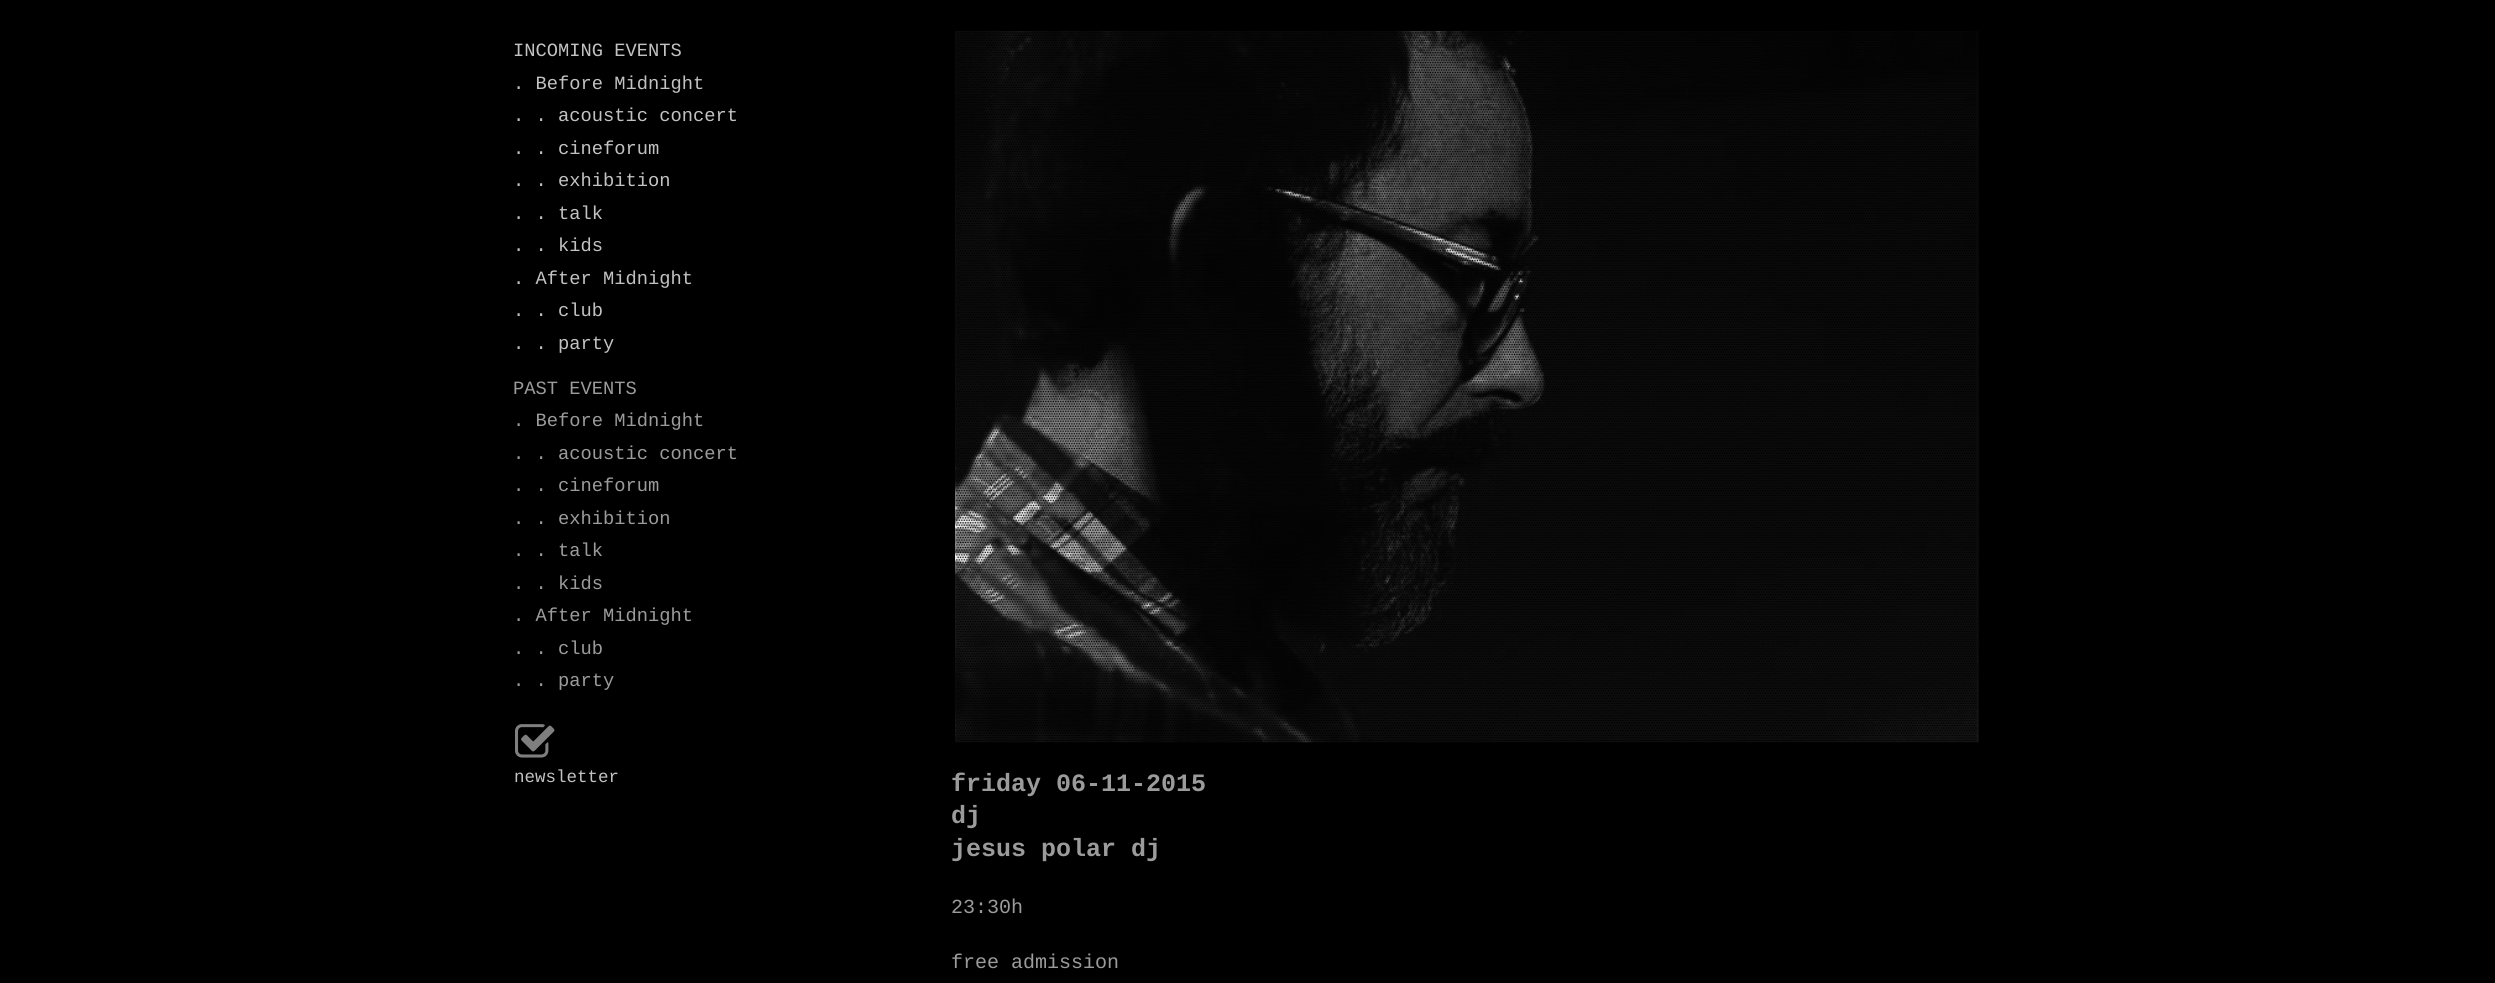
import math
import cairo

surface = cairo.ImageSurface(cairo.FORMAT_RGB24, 2495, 983)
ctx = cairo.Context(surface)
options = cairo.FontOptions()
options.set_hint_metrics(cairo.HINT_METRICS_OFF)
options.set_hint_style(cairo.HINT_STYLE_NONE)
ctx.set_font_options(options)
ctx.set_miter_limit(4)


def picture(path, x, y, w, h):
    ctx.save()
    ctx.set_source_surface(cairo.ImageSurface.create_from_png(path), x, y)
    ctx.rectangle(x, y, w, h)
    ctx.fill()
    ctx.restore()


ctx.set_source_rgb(0, 0, 0)
ctx.paint()
ctx.select_font_face("Liberation Mono")
ctx.set_font_size(18.75)
ctx.set_source_rgb(0.765, 0.761, 0.761)
ctx.move_to(513, 56)
ctx.show_text("INCOMING EVENTS")
ctx.move_to(513, 89)
ctx.show_text(". Before Midnight")
ctx.move_to(513, 121)
ctx.show_text(". . acoustic concert")
ctx.move_to(513, 154)
ctx.show_text(". . cineforum")
ctx.move_to(513, 186)
ctx.show_text(". . exhibition")
ctx.move_to(513, 219)
ctx.show_text(". . talk")
ctx.move_to(513, 251)
ctx.show_text(". . kids")
ctx.move_to(513, 284)
ctx.show_text(". After Midnight")
ctx.move_to(513, 316)
ctx.show_text(". . club")
ctx.move_to(513, 349)
ctx.show_text(". . party")
ctx.set_source_rgb(0.608, 0.608, 0.608)
ctx.move_to(513, 394)
ctx.show_text("PAST EVENTS")
ctx.move_to(513, 426)
ctx.show_text(". Before Midnight")
ctx.move_to(513, 459)
ctx.show_text(". . acoustic concert")
ctx.move_to(513, 491)
ctx.show_text(". . cineforum")
ctx.move_to(513, 524)
ctx.show_text(". . exhibition")
ctx.move_to(513, 556)
ctx.show_text(". . talk")
ctx.move_to(513, 589)
ctx.show_text(". . kids")
ctx.move_to(513, 621)
ctx.show_text(". After Midnight")
ctx.move_to(513, 654)
ctx.show_text(". . club")
ctx.move_to(513, 686)
ctx.show_text(". . party")
picture("img1.png", 515, 724, 40, 34)
ctx.set_font_size(17.5)
ctx.set_source_rgb(0.765, 0.761, 0.761)
ctx.move_to(514, 782)
ctx.show_text("newsletter")
picture("img2.png", 955, 31, 1024, 712)
ctx.select_font_face("Liberation Mono", cairo.FONT_SLANT_NORMAL, cairo.FONT_WEIGHT_BOLD)
ctx.set_font_size(25)
ctx.set_source_rgb(0.608, 0.608, 0.608)
ctx.move_to(951, 791)
ctx.show_text("friday 06-11-2015")
ctx.move_to(951, 823)
ctx.show_text("dj")
ctx.move_to(951, 856)
ctx.show_text("jesus polar dj")
ctx.select_font_face("Liberation Mono")
ctx.set_font_size(20)
ctx.move_to(951, 913)
ctx.show_text("23:30h")
ctx.move_to(951, 968)
ctx.show_text("free admission")
surface.write_to_png("page.png")
